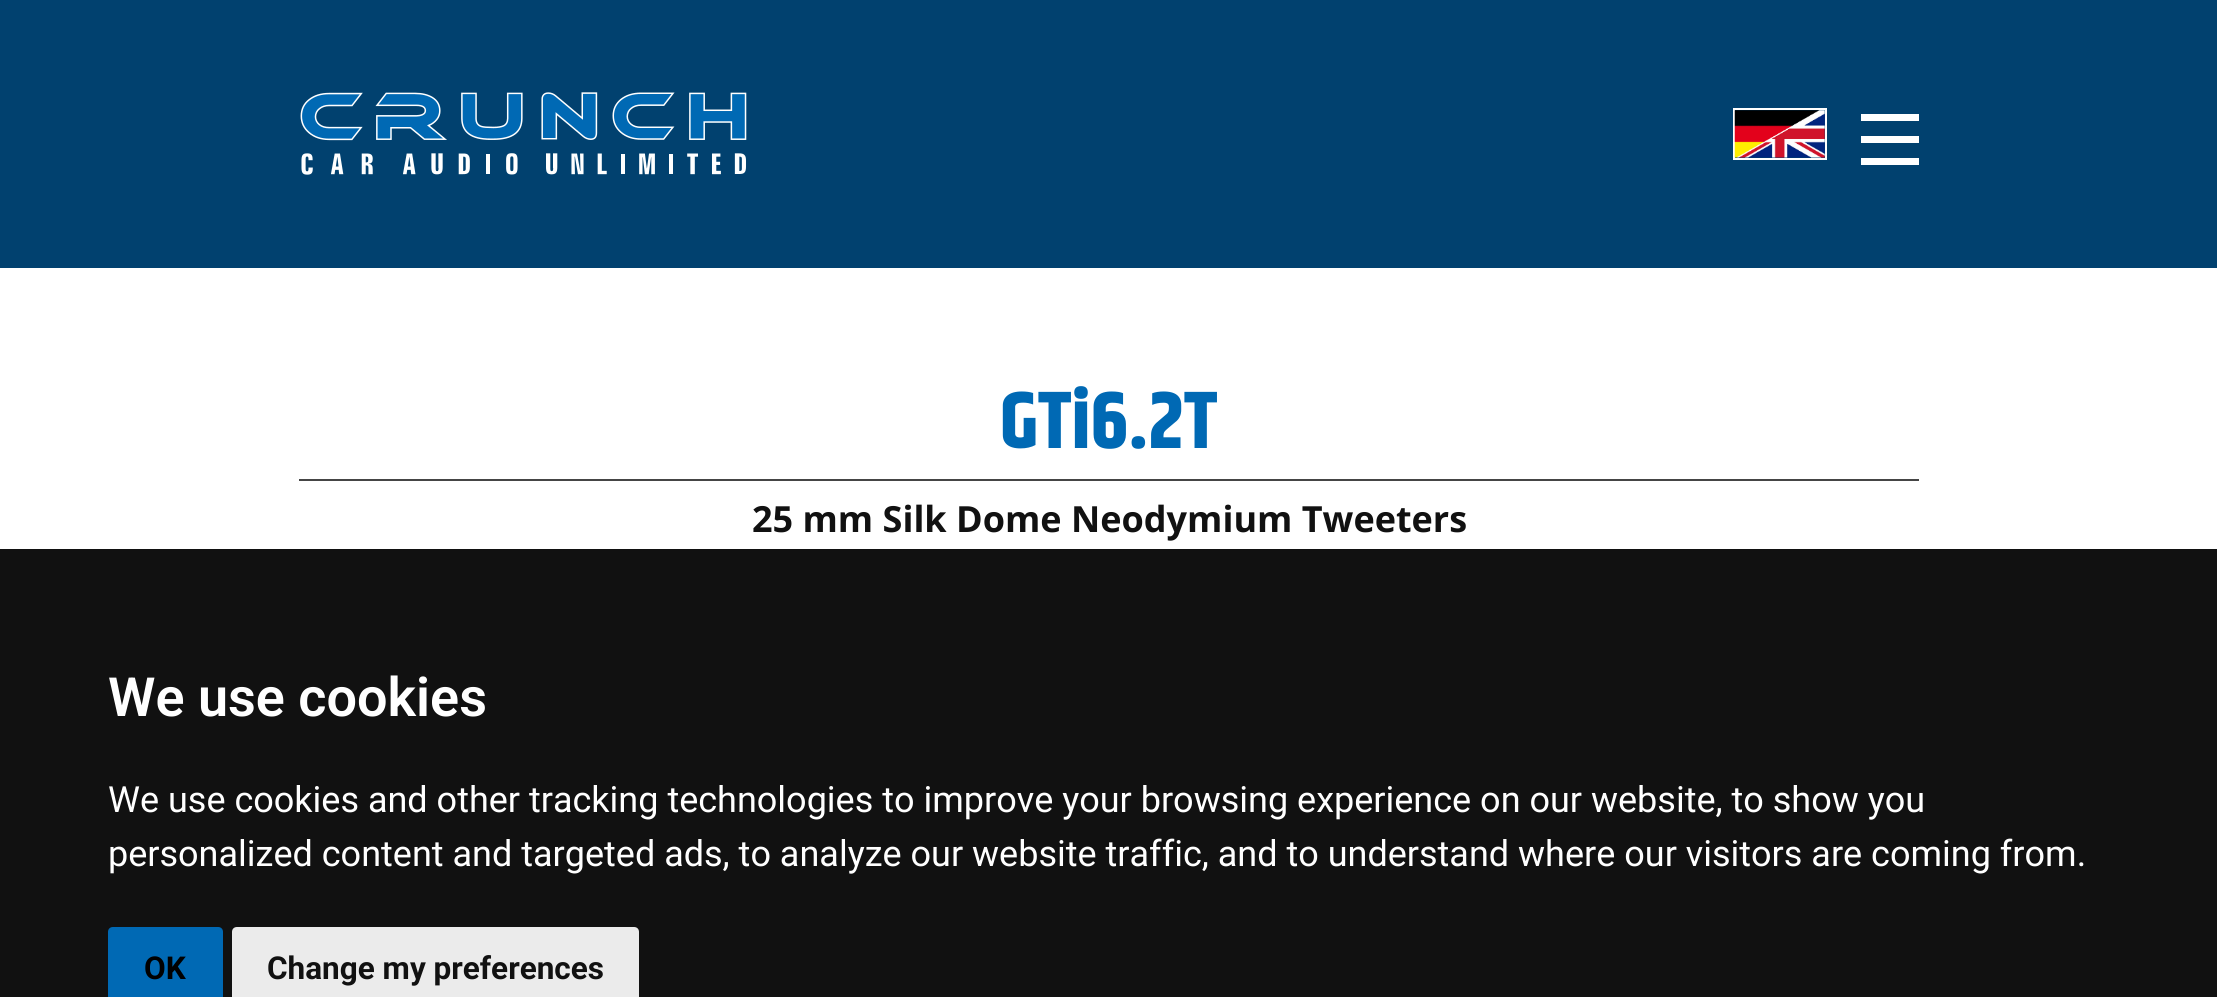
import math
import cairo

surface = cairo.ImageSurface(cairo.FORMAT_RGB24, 2217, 997)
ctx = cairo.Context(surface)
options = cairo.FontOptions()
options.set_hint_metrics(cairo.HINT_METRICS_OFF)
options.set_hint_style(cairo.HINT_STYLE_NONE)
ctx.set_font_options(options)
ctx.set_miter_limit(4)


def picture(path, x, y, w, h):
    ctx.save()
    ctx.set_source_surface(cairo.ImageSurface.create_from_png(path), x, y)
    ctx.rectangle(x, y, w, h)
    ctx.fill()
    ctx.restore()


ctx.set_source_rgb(1, 1, 1)
ctx.paint()
ctx.set_source_rgb(0.004, 0.255, 0.435)
ctx.rectangle(0, 0, 2217, 268)
ctx.fill()
picture("img1.png", 300, 92, 447, 83)
ctx.rectangle(1734, 109, 92, 50)
ctx.set_source_rgb(1, 1, 1)
ctx.stroke()
picture("img2.png", 1734, 110, 91, 48)
ctx.rectangle(1861, 114, 58, 7)
ctx.fill()
ctx.rectangle(1861, 136, 58, 7)
ctx.fill()
ctx.rectangle(1861, 158, 58, 7)
ctx.fill()
ctx.select_font_face("Khand", cairo.FONT_SLANT_NORMAL, cairo.FONT_WEIGHT_BOLD)
ctx.set_font_size(81)
ctx.set_source_rgb(0, 0.412, 0.706)
ctx.move_to(1000, 448)
ctx.show_text("GTi6.2T")
ctx.set_source_rgb(0.271, 0.271, 0.271)
ctx.rectangle(299, 479, 1620, 2)
ctx.fill()
ctx.select_font_face("Open Sans", cairo.FONT_SLANT_NORMAL, cairo.FONT_WEIGHT_BOLD)
ctx.set_font_size(36)
ctx.set_source_rgb(0.067, 0.067, 0.067)
ctx.move_to(752, 532)
ctx.show_text("25 mm Silk Dome Neodymium Tweeters")
ctx.rectangle(0, 549, 2217, 448)
ctx.fill()
ctx.select_font_face("Roboto SemiBold")
ctx.set_font_size(54)
ctx.set_source_rgb(1, 1, 1)
ctx.move_to(108, 716)
ctx.show_text("We use cookies")
ctx.select_font_face("Roboto")
ctx.set_font_size(36)
ctx.move_to(108, 812)
ctx.show_text("We use cookies and other tracking technologies to improve your browsing experience on our website, to show you")
ctx.move_to(108, 866)
ctx.show_text("personalized content and targeted ads, to analyze our website traffic, and to understand where our visitors are coming from.")
ctx.set_source_rgb(0, 0.412, 0.706)
ctx.new_path()
ctx.move_to(113, 927)
ctx.line_to(218, 927)
ctx.curve_to(221, 927, 223, 929, 223, 932)
ctx.line_to(223, 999)
ctx.line_to(108, 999)
ctx.line_to(108, 932)
ctx.curve_to(108, 929, 110, 927, 113, 927)
ctx.close_path()
ctx.fill()
ctx.select_font_face("Roboto", cairo.FONT_SLANT_NORMAL, cairo.FONT_WEIGHT_BOLD)
ctx.set_font_size(31.5)
ctx.set_source_rgb(0, 0, 0)
ctx.move_to(144, 979)
ctx.show_text("OK")
ctx.set_source_rgb(0.918, 0.918, 0.918)
ctx.new_path()
ctx.move_to(237, 927)
ctx.line_to(634, 927)
ctx.curve_to(637, 927, 639, 929, 639, 932)
ctx.line_to(639, 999)
ctx.line_to(232, 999)
ctx.line_to(232, 932)
ctx.curve_to(232, 929, 234, 927, 237, 927)
ctx.close_path()
ctx.fill()
ctx.set_source_rgb(0.067, 0.067, 0.067)
ctx.move_to(267, 979)
ctx.show_text("Change my preferences")
surface.write_to_png("page.png")
